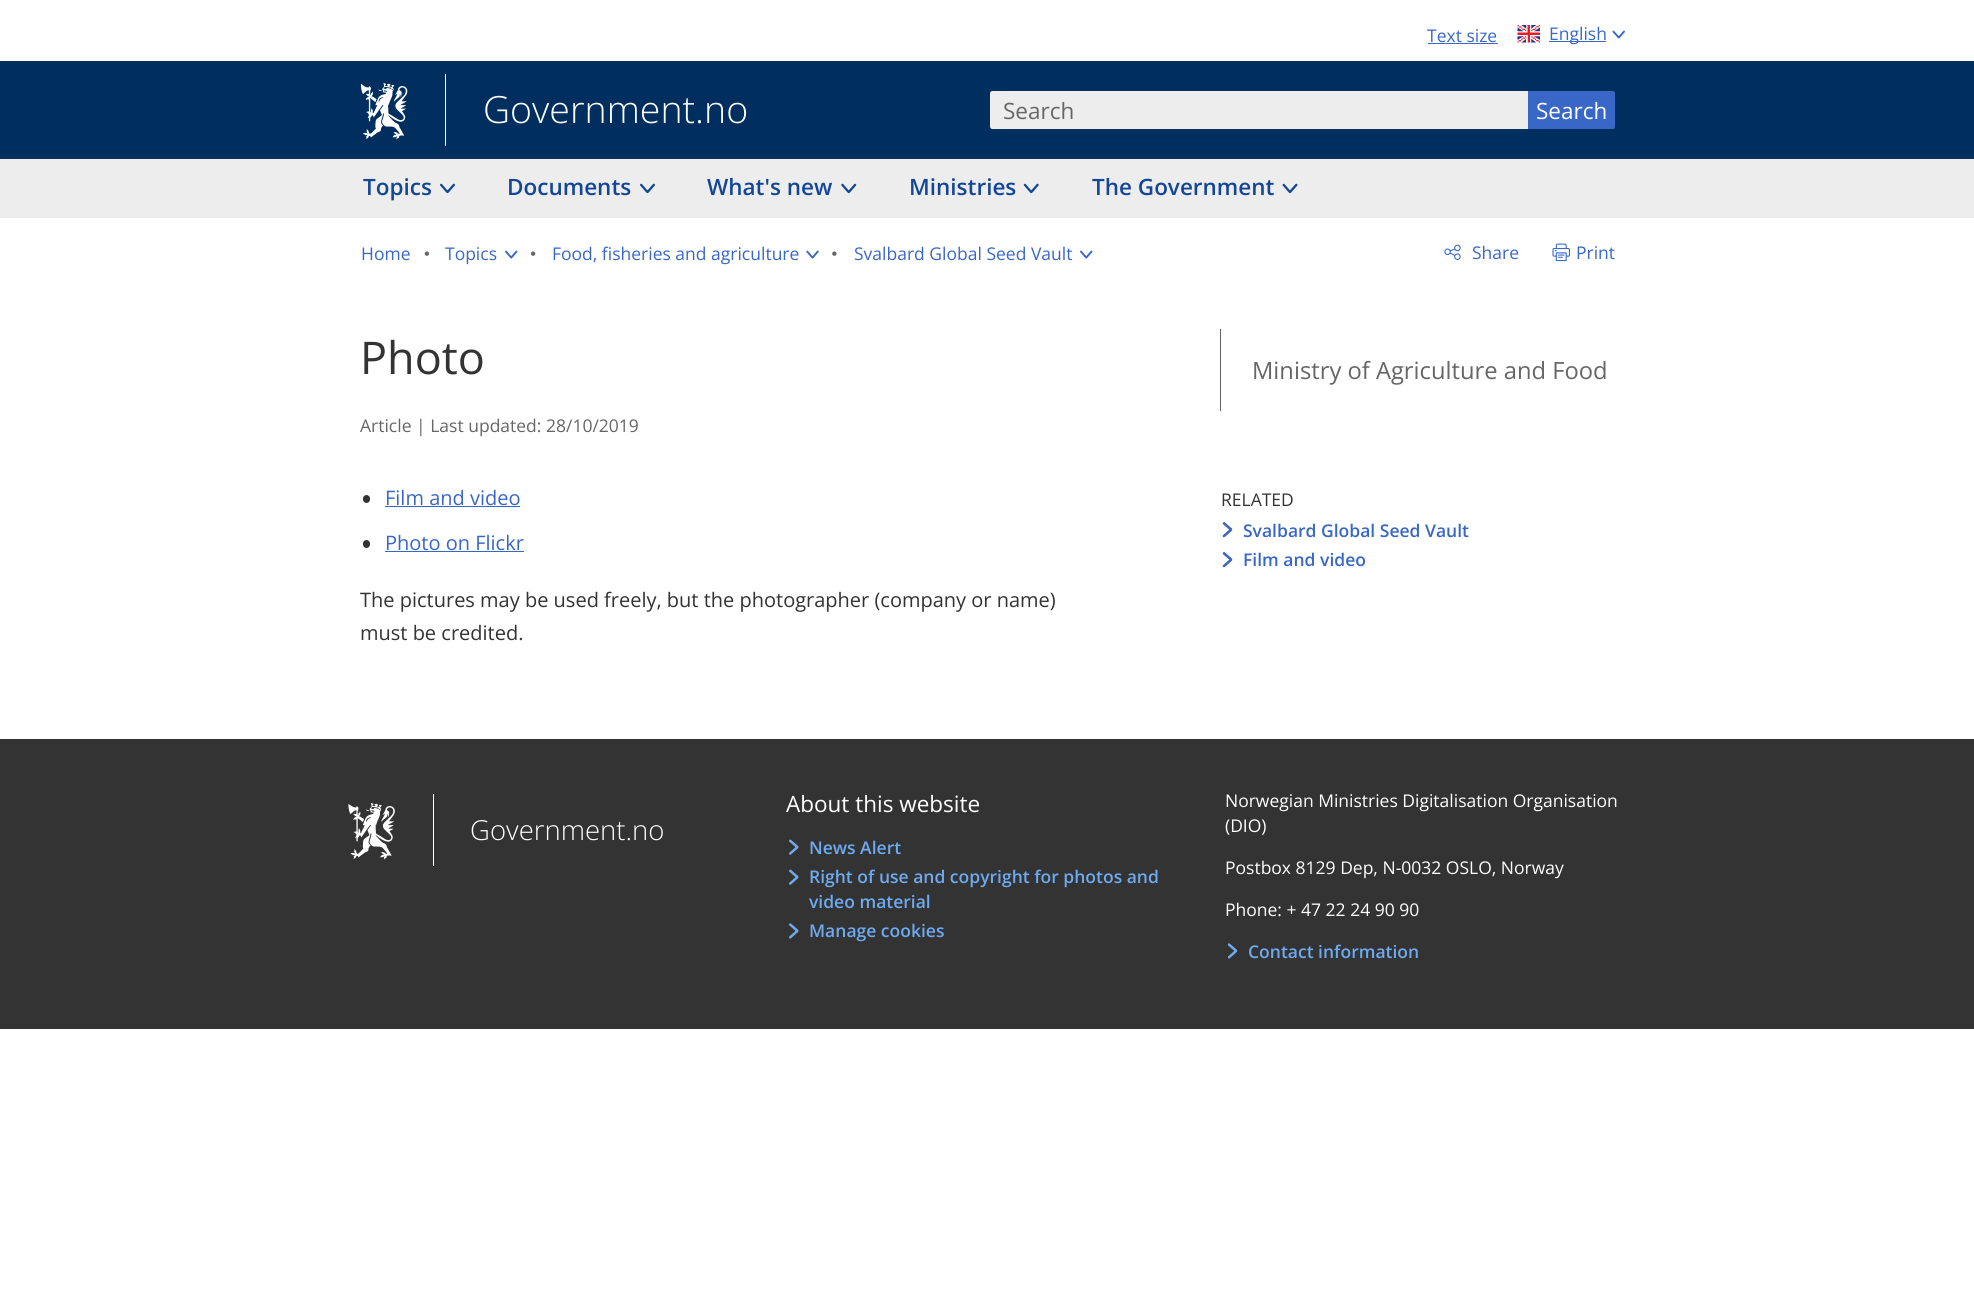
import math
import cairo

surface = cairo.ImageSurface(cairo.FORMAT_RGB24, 1974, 1296)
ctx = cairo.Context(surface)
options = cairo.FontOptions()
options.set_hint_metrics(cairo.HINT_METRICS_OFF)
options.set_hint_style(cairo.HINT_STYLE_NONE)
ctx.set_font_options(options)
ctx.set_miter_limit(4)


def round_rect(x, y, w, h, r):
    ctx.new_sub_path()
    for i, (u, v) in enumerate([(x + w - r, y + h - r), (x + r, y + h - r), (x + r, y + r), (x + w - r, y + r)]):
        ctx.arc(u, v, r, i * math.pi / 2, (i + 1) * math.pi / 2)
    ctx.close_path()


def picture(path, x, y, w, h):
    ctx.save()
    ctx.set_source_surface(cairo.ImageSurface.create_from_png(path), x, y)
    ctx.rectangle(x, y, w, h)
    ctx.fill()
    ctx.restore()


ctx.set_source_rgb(1, 1, 1)
ctx.paint()
ctx.select_font_face("Open Sans")
ctx.set_font_size(17.5)
ctx.set_source_rgb(0.22, 0.404, 0.784)
ctx.move_to(1427, 42)
ctx.show_text("Text size")
ctx.rectangle(1428, 43, 70, 1)
ctx.fill()
picture("img1.png", 1517, 25, 23, 18)
ctx.rectangle(1549, 41, 57, 1)
ctx.fill()
ctx.move_to(1549, 40)
ctx.show_text("English")
picture("img2.png", 1612, 30, 13, 9)
ctx.set_source_rgb(0, 0.18, 0.369)
ctx.rectangle(0, 61, 1974, 98)
ctx.fill()
picture("img3.png", 360, 83, 48, 57)
ctx.set_source_rgb(1, 1, 1)
ctx.rectangle(445, 74, 1, 72)
ctx.fill()
ctx.select_font_face("Open Sans Light")
ctx.set_font_size(37.5)
ctx.move_to(483, 123)
ctx.show_text("Government.no")
ctx.set_source_rgb(0.929, 0.929, 0.929)
ctx.rectangle(0, 159, 1974, 59)
ctx.fill()
ctx.new_path()
ctx.move_to(992.5, 91)
ctx.line_to(1528, 91)
ctx.line_to(1528, 129)
ctx.line_to(992.5, 129)
ctx.curve_to(991, 129, 990, 128, 990, 126.5)
ctx.line_to(990, 93.5)
ctx.curve_to(990, 92, 991, 91, 992.5, 91)
ctx.close_path()
ctx.fill()
ctx.select_font_face("Open Sans")
ctx.set_font_size(22.5)
ctx.set_source_rgb(0.4, 0.4, 0.4)
ctx.move_to(1003, 119)
ctx.show_text("Search")
ctx.set_source_rgb(0.22, 0.404, 0.784)
ctx.new_path()
ctx.move_to(1528, 91)
ctx.line_to(1612.5, 91)
ctx.curve_to(1614, 91, 1615, 92, 1615, 93.5)
ctx.line_to(1615, 126.5)
ctx.curve_to(1615, 128, 1614, 129, 1612.5, 129)
ctx.line_to(1528, 129)
ctx.close_path()
ctx.fill()
ctx.set_source_rgb(1, 1, 1)
ctx.move_to(1536, 119)
ctx.show_text("Search")
ctx.select_font_face("Open Sans SemiBold")
ctx.set_source_rgb(0.078, 0.275, 0.588)
ctx.move_to(363, 195)
ctx.show_text("Topics")
picture("img4.png", 440, 183, 15, 11)
ctx.move_to(507, 195)
ctx.show_text("Documents")
picture("img4.png", 640, 183, 15, 11)
ctx.move_to(707, 195)
ctx.show_text("What's new")
picture("img5.png", 841, 183, 16, 11)
ctx.move_to(909, 195)
ctx.show_text("Ministries")
picture("img6.png", 1023, 183, 16, 11)
ctx.move_to(1092, 195)
ctx.show_text("The Government")
picture("img7.png", 1282, 183, 16, 11)
ctx.select_font_face("Open Sans")
ctx.set_font_size(17.5)
ctx.set_source_rgb(0.22, 0.404, 0.784)
ctx.move_to(361, 260)
ctx.show_text("Home")
picture("img8.png", 424, 251, 5, 5)
ctx.move_to(445, 260)
ctx.show_text("Topics")
picture("img9.png", 505, 250, 13, 9)
picture("img10.png", 531, 251, 5, 5)
ctx.move_to(552, 260)
ctx.show_text("Food, fisheries and agriculture")
picture("img11.png", 806, 250, 13, 9)
picture("img12.png", 832, 251, 5, 5)
ctx.move_to(854, 260)
ctx.show_text("Svalbard Global Seed Vault")
picture("img9.png", 1080, 250, 13, 9)
picture("img13.png", 1444, 244, 17, 16)
ctx.move_to(1472, 259)
ctx.show_text("Share")
picture("img14.png", 1552, 243, 18, 19)
ctx.move_to(1576, 259)
ctx.show_text("Print")
ctx.set_font_size(45)
ctx.set_source_rgb(0.2, 0.2, 0.2)
ctx.move_to(360, 374)
ctx.show_text("Photo")
ctx.set_font_size(17.5)
ctx.set_source_rgb(0.4, 0.4, 0.4)
ctx.move_to(360, 432)
ctx.show_text("Article | Last updated: 28/10/2019")
ctx.set_source_rgb(0.2, 0.2, 0.2)
round_rect(363, 495, 7, 8, 3.5)
ctx.fill()
ctx.set_font_size(20)
ctx.set_source_rgb(0.22, 0.404, 0.784)
ctx.move_to(385, 505)
ctx.show_text("Film and video")
ctx.rectangle(385, 506, 135, 1)
ctx.fill()
ctx.set_source_rgb(0.2, 0.2, 0.2)
round_rect(363, 540, 7, 8, 3.5)
ctx.fill()
ctx.set_source_rgb(0.22, 0.404, 0.784)
ctx.move_to(385, 550)
ctx.show_text("Photo on Flickr")
ctx.rectangle(385, 551, 139, 1)
ctx.fill()
ctx.set_source_rgb(0.2, 0.2, 0.2)
ctx.move_to(360, 607)
ctx.show_text("The pictures may be used freely, but the photographer (company or name)")
ctx.move_to(360, 640)
ctx.show_text("must be credited.")
ctx.set_source_rgb(0.4, 0.4, 0.4)
ctx.rectangle(1220, 329, 1, 82)
ctx.fill()
ctx.set_font_size(23.75)
ctx.move_to(1252, 379)
ctx.show_text("Ministry of Agriculture and Food")
ctx.set_font_size(17.5)
ctx.set_source_rgb(0.2, 0.2, 0.2)
ctx.move_to(1221, 506)
ctx.show_text("RELATED")
picture("img15.png", 1222, 522, 11, 16)
picture("img16.png", 1222, 522, 11, 16)
ctx.select_font_face("Open Sans SemiBold")
ctx.set_source_rgb(0.22, 0.404, 0.784)
ctx.move_to(1243, 537)
ctx.show_text("Svalbard Global Seed Vault")
picture("img15.png", 1222, 552, 11, 16)
picture("img16.png", 1222, 552, 11, 16)
ctx.move_to(1243, 566)
ctx.show_text("Film and video")
ctx.set_source_rgb(0.2, 0.2, 0.2)
ctx.rectangle(0, 739, 1974, 290)
ctx.fill()
picture("img17.png", 348, 803, 47, 57)
ctx.set_source_rgb(1, 1, 1)
ctx.rectangle(433, 794, 1, 72)
ctx.fill()
ctx.select_font_face("Open Sans Light")
ctx.set_font_size(27.5)
ctx.move_to(470, 840)
ctx.show_text("Government.no")
ctx.select_font_face("Open Sans")
ctx.set_font_size(22.5)
ctx.move_to(786, 812)
ctx.show_text("About this website")
picture("img18.png", 789, 839, 10, 16)
picture("img19.png", 789, 839, 10, 16)
ctx.select_font_face("Open Sans SemiBold")
ctx.set_font_size(17.5)
ctx.set_source_rgb(0.431, 0.667, 0.941)
ctx.move_to(809, 854)
ctx.show_text("News Alert")
picture("img18.png", 789, 869, 10, 16)
picture("img19.png", 789, 869, 10, 16)
ctx.move_to(809, 883)
ctx.show_text("Right of use and copyright for photos and")
ctx.move_to(809, 908)
ctx.show_text("video material")
picture("img20.png", 789, 923, 10, 16)
picture("img21.png", 789, 923, 10, 16)
ctx.move_to(809, 937)
ctx.show_text("Manage cookies")
ctx.select_font_face("Open Sans")
ctx.set_source_rgb(1, 1, 1)
ctx.move_to(1225, 807)
ctx.show_text("Norwegian Ministries Digitalisation Organisation")
ctx.move_to(1225, 832)
ctx.show_text("(DIO)")
ctx.move_to(1225, 874)
ctx.show_text("Postbox 8129 Dep, N-0032 OSLO, Norway")
ctx.move_to(1225, 916)
ctx.show_text("Phone: + 47 22 24 90 90")
picture("img22.png", 1227, 943, 11, 16)
picture("img23.png", 1227, 943, 11, 16)
ctx.select_font_face("Open Sans SemiBold")
ctx.set_source_rgb(0.431, 0.667, 0.941)
ctx.move_to(1248, 958)
ctx.show_text("Contact information")
surface.write_to_png("page.png")
